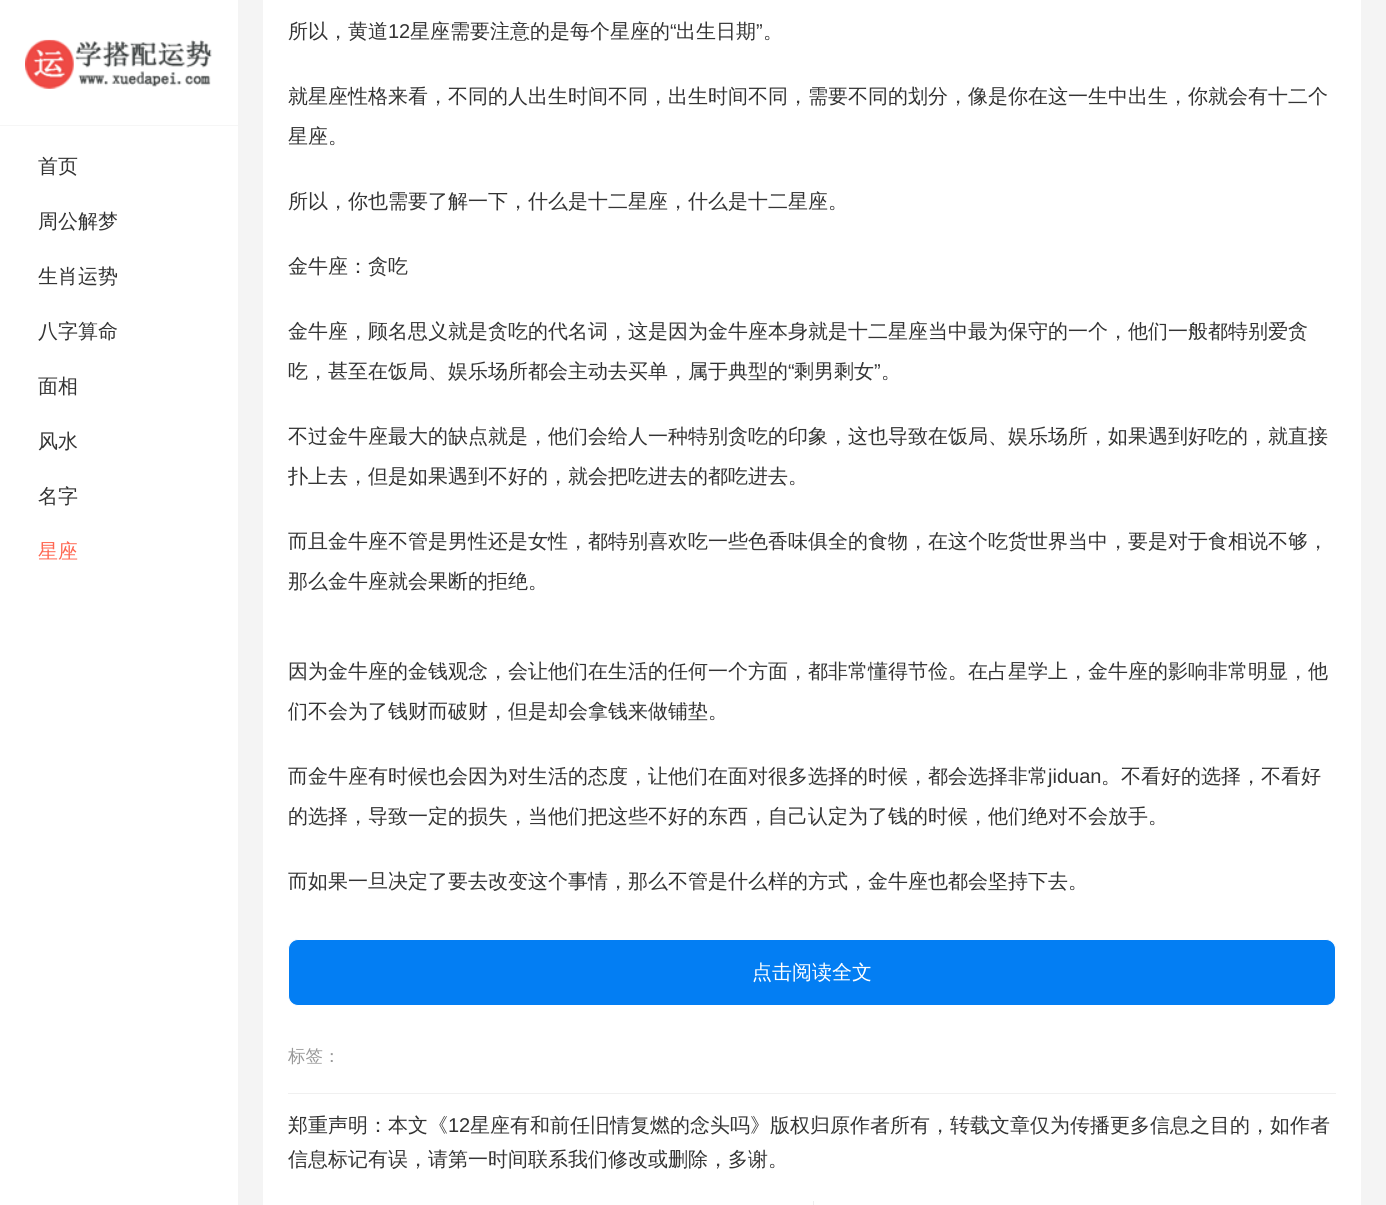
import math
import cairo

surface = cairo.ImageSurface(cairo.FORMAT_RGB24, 1386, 1205)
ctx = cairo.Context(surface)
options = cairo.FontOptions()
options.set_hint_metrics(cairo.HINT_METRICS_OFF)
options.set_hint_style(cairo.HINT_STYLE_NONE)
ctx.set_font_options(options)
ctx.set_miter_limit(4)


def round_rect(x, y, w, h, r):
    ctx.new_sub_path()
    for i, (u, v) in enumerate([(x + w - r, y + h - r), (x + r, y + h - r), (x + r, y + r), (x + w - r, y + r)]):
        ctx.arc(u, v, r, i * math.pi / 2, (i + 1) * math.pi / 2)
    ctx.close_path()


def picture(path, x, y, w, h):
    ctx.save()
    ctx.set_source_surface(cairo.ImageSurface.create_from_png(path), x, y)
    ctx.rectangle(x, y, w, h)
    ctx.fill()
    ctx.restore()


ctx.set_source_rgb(0.957, 0.957, 0.957)
ctx.paint()
ctx.set_source_rgb(1, 1, 1)
ctx.rectangle(0, 0, 238, 1205)
ctx.fill()
ctx.set_source_rgb(0.961, 0.961, 0.961)
ctx.rectangle(0, 125, 238, 1)
ctx.fill()
picture("img1.png", 25, 39, 187, 50)
ctx.select_font_face("WenQuanYi Zen Hei Medium")
ctx.set_font_size(20)
ctx.set_source_rgb(0.2, 0.2, 0.2)
ctx.move_to(38, 173)
ctx.show_text("首页")
ctx.move_to(38, 228)
ctx.show_text("周公解梦")
ctx.move_to(38, 283)
ctx.show_text("生肖运势")
ctx.move_to(38, 338)
ctx.show_text("八字算命")
ctx.move_to(38, 393)
ctx.show_text("面相")
ctx.move_to(38, 448)
ctx.show_text("风水")
ctx.move_to(38, 503)
ctx.show_text("名字")
ctx.set_source_rgb(1, 0.4, 0.318)
ctx.move_to(38, 558)
ctx.show_text("星座")
ctx.set_source_rgb(1, 1, 1)
ctx.rectangle(263, 0, 1098, 1205)
ctx.fill()
ctx.set_source_rgb(0.2, 0.2, 0.2)
ctx.move_to(288, 38)
ctx.show_text("所以，黄道")
ctx.select_font_face("Liberation Sans")
ctx.move_to(388, 38)
ctx.show_text("12")
ctx.select_font_face("WenQuanYi Zen Hei Medium")
ctx.move_to(410, 38)
ctx.show_text("星座需要注意的是每个星座的")
ctx.select_font_face("Liberation Sans")
ctx.move_to(670, 38)
ctx.show_text("“")
ctx.select_font_face("WenQuanYi Zen Hei Medium")
ctx.move_to(676, 38)
ctx.show_text("出生日期")
ctx.select_font_face("Liberation Sans")
ctx.move_to(756, 38)
ctx.show_text("”")
ctx.select_font_face("WenQuanYi Zen Hei Medium")
ctx.move_to(763, 38)
ctx.show_text("。")
ctx.move_to(288, 103)
ctx.show_text("就星座性格来看，不同的人出生时间不同，出生时间不同，需要不同的划分，像是你在这一生中出生，你就会有十二个")
ctx.move_to(288, 143)
ctx.show_text("星座。")
ctx.move_to(288, 208)
ctx.show_text("所以，你也需要了解一下，什么是十二星座，什么是十二星座。")
ctx.move_to(288, 273)
ctx.show_text("金牛座：贪吃")
ctx.move_to(288, 338)
ctx.show_text("金牛座，顾名思义就是贪吃的代名词，这是因为金牛座本身就是十二星座当中最为保守的一个，他们一般都特别爱贪")
ctx.move_to(288, 378)
ctx.show_text("吃，甚至在饭局、娱乐场所都会主动去买单，属于典型的")
ctx.select_font_face("Liberation Sans")
ctx.move_to(788, 378)
ctx.show_text("“")
ctx.select_font_face("WenQuanYi Zen Hei Medium")
ctx.move_to(794, 378)
ctx.show_text("剩男剩女")
ctx.select_font_face("Liberation Sans")
ctx.move_to(874, 378)
ctx.show_text("”")
ctx.select_font_face("WenQuanYi Zen Hei Medium")
ctx.move_to(881, 378)
ctx.show_text("。")
ctx.move_to(288, 443)
ctx.show_text("不过金牛座最大的缺点就是，他们会给人一种特别贪吃的印象，这也导致在饭局、娱乐场所，如果遇到好吃的，就直接")
ctx.move_to(288, 483)
ctx.show_text("扑上去，但是如果遇到不好的，就会把吃进去的都吃进去。")
ctx.move_to(288, 548)
ctx.show_text("而且金牛座不管是男性还是女性，都特别喜欢吃一些色香味俱全的食物，在这个吃货世界当中，要是对于食相说不够，")
ctx.move_to(288, 588)
ctx.show_text("那么金牛座就会果断的拒绝。")
ctx.move_to(288, 678)
ctx.show_text("因为金牛座的金钱观念，会让他们在生活的任何一个方面，都非常懂得节俭。在占星学上，金牛座的影响非常明显，他")
ctx.move_to(288, 718)
ctx.show_text("们不会为了钱财而破财，但是却会拿钱来做铺垫。")
ctx.move_to(288, 783)
ctx.show_text("而金牛座有时候也会因为对生活的态度，让他们在面对很多选择的时候，都会选择非常")
ctx.select_font_face("Liberation Sans")
ctx.move_to(1048, 783)
ctx.show_text("jiduan")
ctx.select_font_face("WenQuanYi Zen Hei Medium")
ctx.move_to(1101, 783)
ctx.show_text("。不看好的选择，不看好")
ctx.move_to(288, 823)
ctx.show_text("的选择，导致一定的损失，当他们把这些不好的东西，自己认定为了钱的时候，他们绝对不会放手。")
ctx.move_to(288, 888)
ctx.show_text("而如果一旦决定了要去改变这个事情，那么不管是什么样的方式，金牛座也都会坚持下去。")
ctx.set_source_rgb(0.012, 0.494, 0.953)
round_rect(288.5, 939.5, 1047, 66, 9.5)
ctx.fill_preserve()
ctx.set_source_rgb(1, 1, 1)
ctx.set_line_width(1)
ctx.stroke()
ctx.move_to(752, 979)
ctx.show_text("点击阅读全文")
ctx.set_font_size(17.5)
ctx.set_source_rgb(0.6, 0.6, 0.6)
ctx.move_to(288, 1062)
ctx.show_text("标签：")
ctx.set_source_rgb(0.941, 0.941, 0.941)
ctx.rectangle(288, 1093, 1048, 1)
ctx.fill()
ctx.set_font_size(20)
ctx.set_source_rgb(0.2, 0.2, 0.2)
ctx.move_to(288, 1132)
ctx.show_text("郑重声明：本文《")
ctx.select_font_face("Liberation Sans")
ctx.move_to(448, 1132)
ctx.show_text("12")
ctx.select_font_face("WenQuanYi Zen Hei Medium")
ctx.move_to(470, 1132)
ctx.show_text("星座有和前任旧情复燃的念头吗》版权归原作者所有，转载文章仅为传播更多信息之目的，如作者")
ctx.move_to(288, 1166)
ctx.show_text("信息标记有误，请第一时间联系我们修改或删除，多谢。")
ctx.set_source_rgb(0.933, 0.933, 0.933)
ctx.rectangle(813, 1201, 1, 4)
ctx.fill()
surface.write_to_png("page.png")
